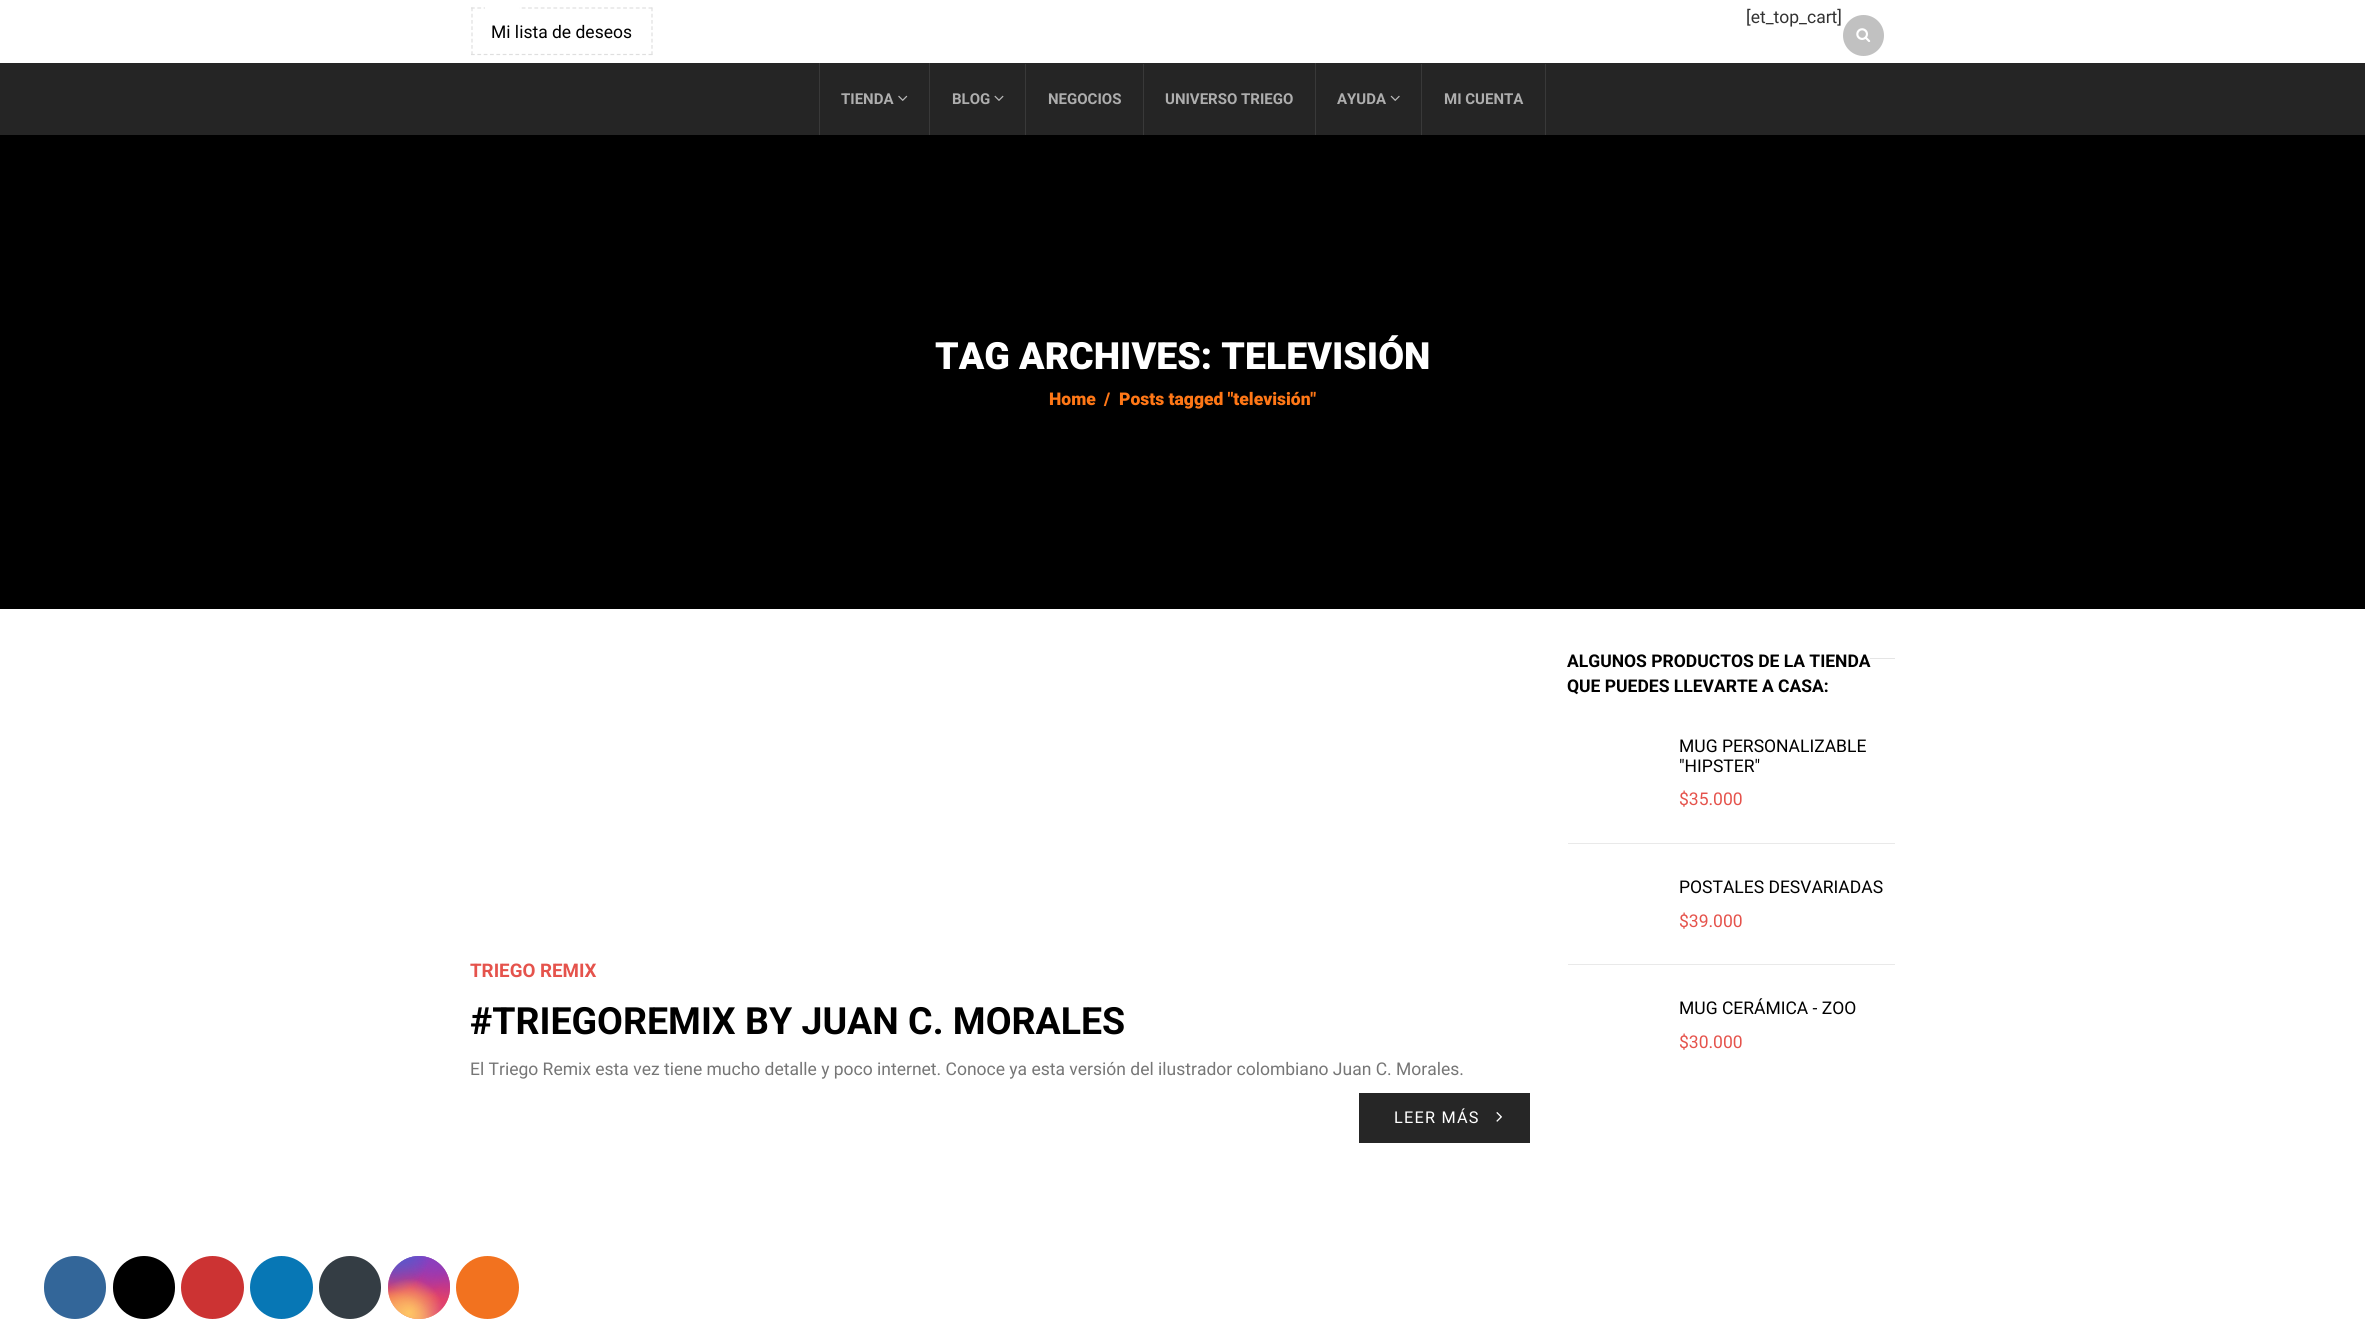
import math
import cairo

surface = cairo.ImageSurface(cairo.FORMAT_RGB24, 2365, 1322)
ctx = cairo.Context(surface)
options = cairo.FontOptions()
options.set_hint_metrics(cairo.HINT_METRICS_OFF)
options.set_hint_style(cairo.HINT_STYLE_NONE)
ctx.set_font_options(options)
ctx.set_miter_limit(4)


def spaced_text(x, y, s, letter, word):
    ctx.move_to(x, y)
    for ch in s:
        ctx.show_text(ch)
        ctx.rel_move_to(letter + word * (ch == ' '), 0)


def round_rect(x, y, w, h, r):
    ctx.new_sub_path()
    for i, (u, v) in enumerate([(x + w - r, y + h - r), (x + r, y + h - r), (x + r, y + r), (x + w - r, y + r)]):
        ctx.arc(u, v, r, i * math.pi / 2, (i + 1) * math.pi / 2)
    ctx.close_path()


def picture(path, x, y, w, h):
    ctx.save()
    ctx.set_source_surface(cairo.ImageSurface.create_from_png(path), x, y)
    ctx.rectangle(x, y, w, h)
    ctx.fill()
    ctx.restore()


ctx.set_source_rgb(1, 1, 1)
ctx.paint()
ctx.select_font_face("Roboto")
ctx.set_font_size(17.5)
ctx.set_source_rgb(0.2, 0.2, 0.2)
ctx.move_to(1746, 23)
ctx.show_text("[et_top_cart]")
ctx.set_source_rgb(0.757, 0.757, 0.757)
ctx.new_path()
ctx.arc(1863.5, 35.5, 20.5, 0, 2 * math.pi)
ctx.fill()
picture("img1.png", 1856, 28, 15, 14)
ctx.new_path()
ctx.move_to(471, 8)
ctx.line_to(652.5, 8)
ctx.set_source_rgb(0.875, 0.875, 0.875)
ctx.set_line_width(1.2)
ctx.set_dash([3.75, 2.59])
ctx.stroke()
ctx.new_path()
ctx.move_to(652, 7.5)
ctx.line_to(652, 55)
ctx.set_dash([3.75, 2.5])
ctx.stroke()
ctx.new_path()
ctx.move_to(471, 54.5)
ctx.line_to(652.5, 54.5)
ctx.set_dash([3.75, 2.59])
ctx.stroke()
ctx.new_path()
ctx.move_to(472, 7.5)
ctx.line_to(472, 55)
ctx.set_dash([3.75, 2.5])
ctx.stroke()
ctx.set_source_rgb(1, 1, 1)
ctx.rectangle(485, 7, 34, 2)
ctx.fill()
ctx.set_source_rgb(0, 0, 0)
ctx.move_to(491, 38)
ctx.show_text("Mi lista de deseos")
ctx.set_source_rgb(0.145, 0.145, 0.145)
ctx.rectangle(0, 63, 2365, 72)
ctx.fill()
ctx.set_source_rgb(0.224, 0.224, 0.224)
ctx.rectangle(819, 63, 1, 72)
ctx.fill()
ctx.select_font_face("Roboto", cairo.FONT_SLANT_NORMAL, cairo.FONT_WEIGHT_BOLD)
ctx.set_font_size(15)
ctx.set_source_rgb(0.682, 0.682, 0.682)
ctx.move_to(841, 104)
ctx.show_text("TIENDA")
picture("img2.png", 898, 95, 10, 6)
ctx.set_source_rgb(0.224, 0.224, 0.224)
ctx.rectangle(929, 63, 1, 72)
ctx.fill()
ctx.set_source_rgb(0.682, 0.682, 0.682)
ctx.move_to(952, 104)
ctx.show_text("BLOG")
picture("img3.png", 994, 95, 10, 6)
ctx.set_source_rgb(0.224, 0.224, 0.224)
ctx.rectangle(1025, 64, 1, 71)
ctx.fill()
ctx.set_source_rgb(0.682, 0.682, 0.682)
ctx.move_to(1048, 104)
ctx.show_text("NEGOCIOS")
ctx.set_source_rgb(0.224, 0.224, 0.224)
ctx.rectangle(1143, 64, 1, 71)
ctx.fill()
ctx.set_source_rgb(0.682, 0.682, 0.682)
ctx.move_to(1165, 104)
ctx.show_text("UNIVERSO TRIEGO")
ctx.set_source_rgb(0.224, 0.224, 0.224)
ctx.rectangle(1315, 63, 1, 72)
ctx.fill()
ctx.set_source_rgb(0.682, 0.682, 0.682)
ctx.move_to(1337, 104)
ctx.show_text("AYUDA")
picture("img4.png", 1390, 95, 10, 6)
ctx.set_source_rgb(0.224, 0.224, 0.224)
ctx.rectangle(1545, 64, 1, 71)
ctx.fill()
ctx.rectangle(1421, 64, 1, 71)
ctx.fill()
ctx.set_source_rgb(0.682, 0.682, 0.682)
ctx.move_to(1444, 104)
ctx.show_text("MI CUENTA")
ctx.set_source_rgb(0, 0, 0)
ctx.rectangle(0, 135, 2365, 474)
ctx.fill()
ctx.select_font_face("Roboto Black")
ctx.set_font_size(37.5)
ctx.set_source_rgb(1, 1, 1)
ctx.move_to(935, 369)
ctx.show_text("TAG ARCHIVES: TELEVISIÓN")
ctx.set_font_size(17.5)
ctx.set_source_rgb(1, 0.467, 0.086)
ctx.move_to(1049, 405)
ctx.show_text("Home")
ctx.move_to(1104, 405)
ctx.show_text("/")
ctx.move_to(1119, 405)
ctx.show_text("Posts tagged \"televisión\"")
ctx.select_font_face("Roboto", cairo.FONT_SLANT_NORMAL, cairo.FONT_WEIGHT_BOLD)
ctx.set_font_size(18.75)
ctx.set_source_rgb(0.898, 0.325, 0.298)
ctx.move_to(470, 977)
ctx.show_text("TRIEGO REMIX")
ctx.set_font_size(37.5)
ctx.set_source_rgb(0, 0, 0)
ctx.move_to(470, 1034)
ctx.show_text("#TRIEGOREMIX BY JUAN C. MORALES")
ctx.select_font_face("Roboto")
ctx.set_font_size(17.5)
ctx.set_source_rgb(0.463, 0.463, 0.463)
ctx.move_to(470, 1075)
ctx.show_text("El Triego Remix esta vez tiene mucho detalle y poco internet. Conoce ya esta versión del ilustrador colombiano Juan C. Morales.")
ctx.set_source_rgb(0.149, 0.149, 0.149)
ctx.rectangle(1359, 1093, 171, 50)
ctx.fill()
ctx.set_font_size(16.25)
ctx.set_source_rgb(1, 1, 1)
spaced_text(1394, 1123, "LEER MÁS", 1.25, 0)
picture("img5.png", 1496, 1112, 6, 10)
ctx.set_source_rgb(0.898, 0.898, 0.898)
ctx.rectangle(1870, 658, 25, 1)
ctx.fill()
ctx.select_font_face("Roboto", cairo.FONT_SLANT_NORMAL, cairo.FONT_WEIGHT_BOLD)
ctx.set_font_size(17.5)
ctx.set_source_rgb(0, 0, 0)
ctx.move_to(1567, 667)
ctx.show_text("ALGUNOS PRODUCTOS DE LA TIENDA")
ctx.move_to(1567, 692)
ctx.show_text("QUE PUEDES LLEVARTE A CASA:")
ctx.set_source_rgb(0.914, 0.914, 0.914)
ctx.rectangle(1568, 843, 327, 1)
ctx.fill()
ctx.select_font_face("Roboto")
ctx.set_source_rgb(0, 0, 0)
ctx.move_to(1679, 752)
ctx.show_text("MUG PERSONALIZABLE")
ctx.move_to(1679, 772)
ctx.show_text("\"HIPSTER\"")
ctx.set_source_rgb(0.898, 0.325, 0.298)
ctx.move_to(1679, 805)
ctx.show_text("$35.000")
ctx.set_source_rgb(0.914, 0.914, 0.914)
ctx.rectangle(1568, 964, 327, 1)
ctx.fill()
ctx.set_source_rgb(0, 0, 0)
ctx.move_to(1679, 893)
ctx.show_text("POSTALES DESVARIADAS")
ctx.set_source_rgb(0.898, 0.325, 0.298)
ctx.move_to(1679, 927)
ctx.show_text("$39.000")
ctx.set_source_rgb(0, 0, 0)
ctx.move_to(1679, 1014)
ctx.show_text("MUG CERÁMICA - ZOO")
ctx.set_source_rgb(0.898, 0.325, 0.298)
ctx.move_to(1679, 1048)
ctx.show_text("$30.000")
ctx.set_source_rgb(0.2, 0.4, 0.6)
round_rect(44, 1256, 62, 63, 31)
ctx.fill()
ctx.set_source_rgb(0, 0, 0)
round_rect(113, 1256, 62, 63, 31)
ctx.fill()
ctx.set_source_rgb(0.8, 0.2, 0.2)
ctx.arc(212.5, 1287.5, 31.5, 0, 2 * math.pi)
ctx.fill()
ctx.set_source_rgb(0.031, 0.467, 0.71)
ctx.arc(281.5, 1287.5, 31.5, 0, 2 * math.pi)
ctx.fill()
ctx.set_source_rgb(0.204, 0.239, 0.267)
round_rect(319, 1256, 62, 63, 31)
ctx.fill()
gradient = cairo.LinearGradient(419, 1256, 419, 1319)
gradient.add_color_stop_rgba(0, 0.396, 0.349, 0.792, 1)
gradient.add_color_stop_rgba(0.3, 0.737, 0.192, 0.561, 1)
gradient.add_color_stop_rgba(0.5, 0.89, 0.247, 0.373, 1)
gradient.add_color_stop_rgba(0.7, 0.969, 0.463, 0.22, 1)
gradient.add_color_stop_rgba(1, 0.996, 0.776, 0.427, 1)
ctx.set_source(gradient)
round_rect(388, 1256, 62, 63, 31)
ctx.fill()
gradient = cairo.RadialGradient(450, 1319, 0, 450, 1319, 88)
gradient.add_color_stop_rgba(0, 0.851, 0.192, 0.478, 1)
gradient.add_color_stop_rgba(1, 0.851, 0.192, 0.478, 0)
ctx.set_source(gradient)
round_rect(388, 1256, 62, 63, 31)
ctx.fill()
gradient = cairo.RadialGradient(0, 0, 0, 0, 0, 1)
gradient.set_matrix(cairo.Matrix(1 / 53, 0, 0, 1 / 106, -1 * 425 / 53, -1 * 1244 / 106))
gradient.add_color_stop_rgba(0, 0.537, 0.239, 0.761, 1)
gradient.add_color_stop_rgba(0.5, 0.537, 0.239, 0.761, 0)
ctx.set_source(gradient)
round_rect(388, 1256, 62, 63, 31)
ctx.fill()
gradient = cairo.RadialGradient(450, 1256, 0, 450, 1256, 88)
gradient.add_color_stop_rgba(0, 0.537, 0.239, 0.761, 1)
gradient.add_color_stop_rgba(0.5, 0.537, 0.239, 0.761, 0)
ctx.set_source(gradient)
round_rect(388, 1256, 62, 63, 31)
ctx.fill()
gradient = cairo.RadialGradient(0, 0, 0, 0, 0, 1)
gradient.set_matrix(cairo.Matrix(1 / 71, 0, 0, 1 / 133, -1 * 400 / 71, -1 * 1225 / 133))
gradient.add_color_stop_rgba(0, 0.322, 0.345, 0.812, 1)
gradient.add_color_stop_rgba(0.5, 0.322, 0.345, 0.812, 0)
ctx.set_source(gradient)
round_rect(388, 1256, 62, 63, 31)
ctx.fill()
gradient = cairo.RadialGradient(0, 0, 0, 0, 0, 1)
gradient.set_matrix(cairo.Matrix(1 / 88, 0, 0, 1 / 110, -1 * 388 / 88, -1 * 1241 / 110))
gradient.add_color_stop_rgba(0, 0.322, 0.345, 0.812, 1)
gradient.add_color_stop_rgba(0.5, 0.322, 0.345, 0.812, 0)
ctx.set_source(gradient)
round_rect(388, 1256, 62, 63, 31)
ctx.fill()
gradient = cairo.RadialGradient(388, 1344, 0, 388, 1344, 108)
gradient.add_color_stop_rgba(0, 0.996, 0.773, 0.392, 1)
gradient.add_color_stop_rgba(0.5, 0.996, 0.773, 0.392, 0)
ctx.set_source(gradient)
round_rect(388, 1256, 62, 63, 31)
ctx.fill()
gradient = cairo.RadialGradient(409, 1313, 0, 409, 1313, 69)
gradient.add_color_stop_rgba(0, 0.996, 0.773, 0.392, 1)
gradient.add_color_stop_rgba(0.5, 0.996, 0.773, 0.392, 0)
ctx.set_source(gradient)
round_rect(388, 1256, 62, 63, 31)
ctx.fill()
ctx.set_source_rgb(0.949, 0.447, 0.122)
ctx.arc(487.5, 1287.5, 31.5, 0, 2 * math.pi)
ctx.fill()
surface.write_to_png("page.png")
